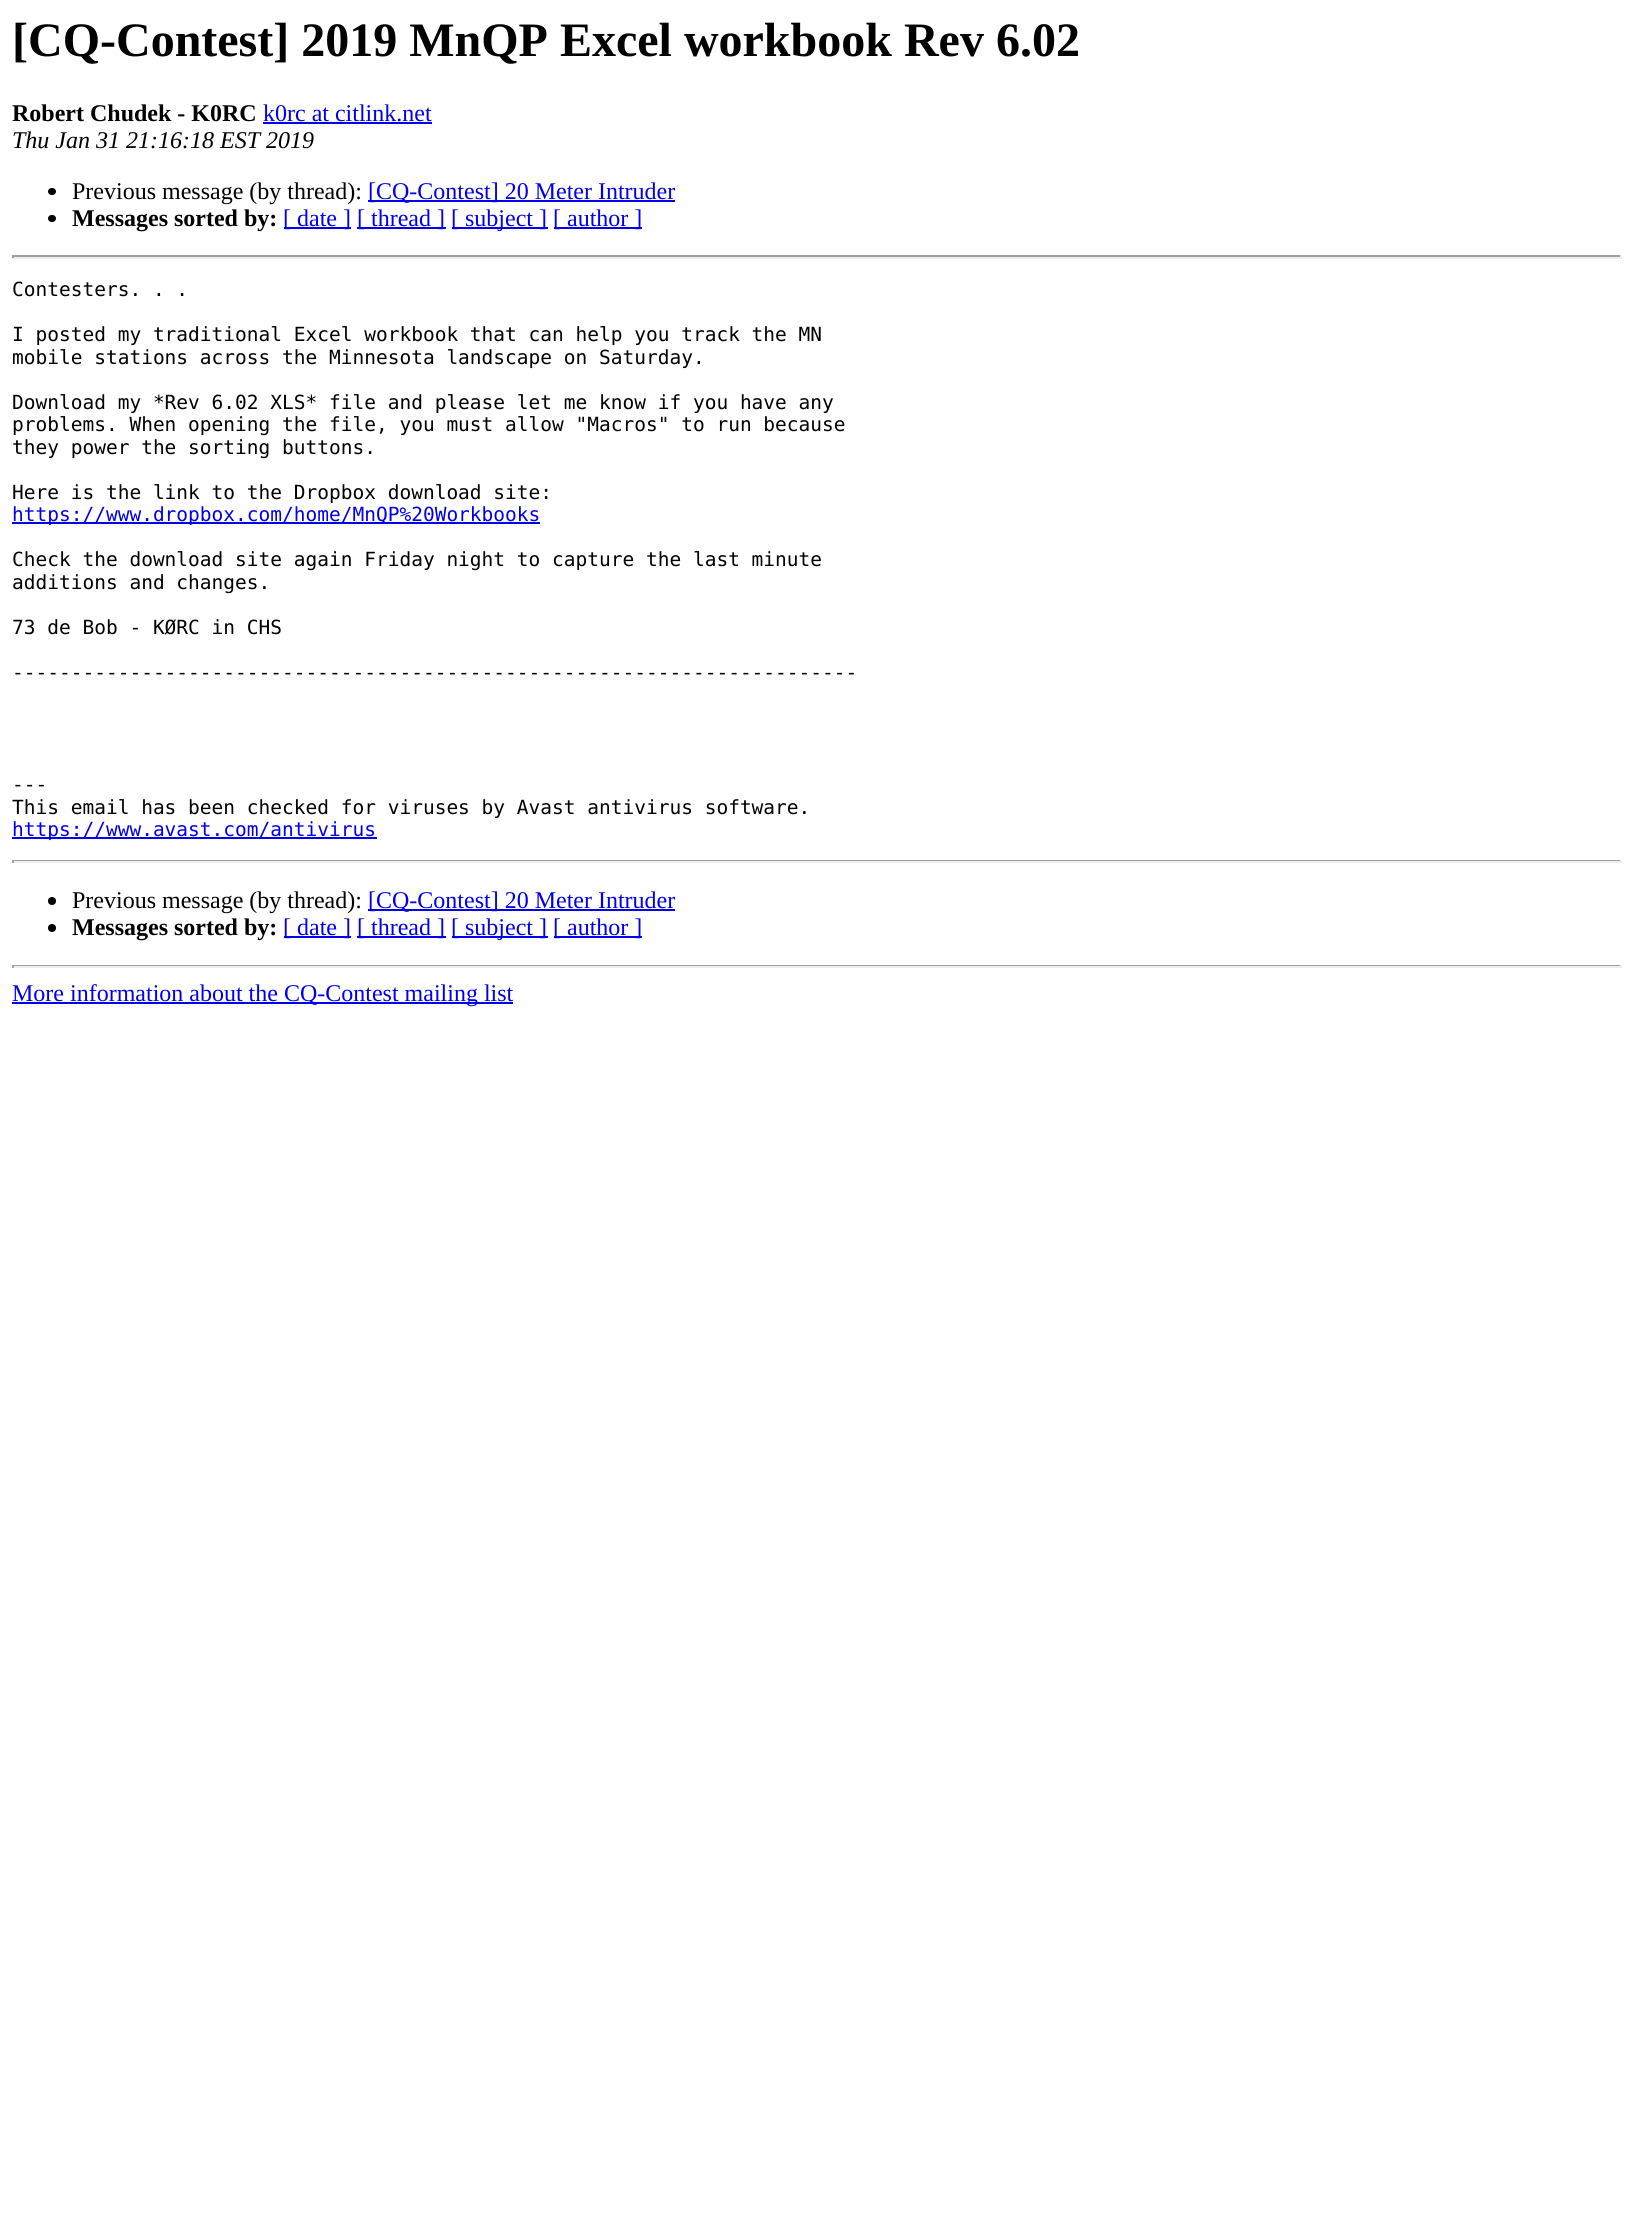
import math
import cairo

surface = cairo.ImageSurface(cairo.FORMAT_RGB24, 1633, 2235)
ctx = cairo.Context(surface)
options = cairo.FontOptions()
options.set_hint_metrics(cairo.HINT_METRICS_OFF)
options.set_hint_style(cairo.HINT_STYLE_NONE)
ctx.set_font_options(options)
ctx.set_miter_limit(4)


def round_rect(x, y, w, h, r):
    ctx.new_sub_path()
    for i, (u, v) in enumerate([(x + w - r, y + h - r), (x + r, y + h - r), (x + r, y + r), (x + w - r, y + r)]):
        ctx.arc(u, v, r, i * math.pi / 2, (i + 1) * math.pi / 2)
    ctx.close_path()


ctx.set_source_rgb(1, 1, 1)
ctx.paint()
ctx.select_font_face("Liberation Serif", cairo.FONT_SLANT_NORMAL, cairo.FONT_WEIGHT_BOLD)
ctx.set_font_size(48)
ctx.set_source_rgb(0, 0, 0)
ctx.move_to(12, 56)
ctx.show_text("[CQ-Contest] 2019 MnQP Excel workbook Rev 6.02")
ctx.set_font_size(24)
ctx.move_to(12, 121)
ctx.show_text("Robert Chudek - K0RC")
ctx.select_font_face("Liberation Serif")
ctx.set_source_rgb(0, 0, 0.933)
ctx.move_to(263, 121)
ctx.show_text("k0rc at citlink.net")
ctx.rectangle(263, 122, 169, 2)
ctx.fill()
ctx.select_font_face("Liberation Serif", cairo.FONT_SLANT_ITALIC)
ctx.set_source_rgb(0, 0, 0)
ctx.move_to(12, 148)
ctx.show_text("Thu Jan 31 21:16:18 EST 2019")
round_rect(48, 188, 8, 7, 3.5)
ctx.fill()
ctx.select_font_face("Liberation Serif")
ctx.move_to(72, 199)
ctx.show_text("Previous message (by thread):")
ctx.set_source_rgb(0, 0, 0.933)
ctx.rectangle(368, 200, 307, 2)
ctx.fill()
ctx.move_to(368, 199)
ctx.show_text("[CQ-Contest] 20 Meter Intruder")
ctx.set_source_rgb(0, 0, 0)
round_rect(48, 215, 8, 7, 3.5)
ctx.fill()
ctx.select_font_face("Liberation Serif", cairo.FONT_SLANT_NORMAL, cairo.FONT_WEIGHT_BOLD)
ctx.move_to(72, 226)
ctx.show_text("Messages sorted by:")
ctx.set_source_rgb(0, 0, 0.933)
ctx.rectangle(284, 227, 67, 2)
ctx.fill()
ctx.select_font_face("Liberation Serif")
ctx.move_to(283, 226)
ctx.show_text("[ date ]")
ctx.rectangle(357, 227, 89, 2)
ctx.fill()
ctx.move_to(357, 226)
ctx.show_text("[ thread ]")
ctx.rectangle(452, 227, 96, 2)
ctx.fill()
ctx.move_to(451, 226)
ctx.show_text("[ subject ]")
ctx.rectangle(554, 227, 88, 2)
ctx.fill()
ctx.move_to(553, 226)
ctx.show_text("[ author ]")
ctx.set_source_rgb(0.624, 0.624, 0.624)
ctx.rectangle(12, 255, 1610, 2)
ctx.fill()
ctx.set_source_rgb(0.933, 0.933, 0.933)
ctx.rectangle(1620, 255, 2, 3)
ctx.fill()
ctx.rectangle(12, 257, 1610, 2)
ctx.fill()
ctx.set_source_rgb(0.624, 0.624, 0.624)
ctx.rectangle(12, 255, 2, 3)
ctx.fill()
ctx.select_font_face("DejaVu Sans Mono")
ctx.set_font_size(19.5)
ctx.set_source_rgb(0, 0, 0)
ctx.move_to(12, 296)
ctx.show_text("Contesters. . .")
ctx.move_to(12, 341)
ctx.show_text("I posted my traditional Excel workbook that can help you track the MN")
ctx.move_to(12, 364)
ctx.show_text("mobile stations across the Minnesota landscape on Saturday.")
ctx.move_to(12, 409)
ctx.show_text("Download my *Rev 6.02 XLS* file and please let me know if you have any")
ctx.move_to(12, 431)
ctx.show_text("problems. When opening the file, you must allow \"Macros\" to run because")
ctx.move_to(12, 454)
ctx.show_text("they power the sorting buttons.")
ctx.move_to(12, 499)
ctx.show_text("Here is the link to the Dropbox download site:")
ctx.set_source_rgb(0, 0, 0.933)
ctx.rectangle(12, 522, 528, 2)
ctx.fill()
ctx.move_to(12, 521)
ctx.show_text("https://www.dropbox.com/home/MnQP%20Workbooks")
ctx.set_source_rgb(0, 0, 0)
ctx.move_to(12, 566)
ctx.show_text("Check the download site again Friday night to capture the last minute")
ctx.move_to(12, 589)
ctx.show_text("additions and changes.")
ctx.move_to(12, 634)
ctx.show_text("73 de Bob - KØRC in CHS")
ctx.move_to(12, 679)
ctx.show_text("------------------------------------------------------------------------")
ctx.move_to(12, 791)
ctx.show_text("---")
ctx.move_to(12, 814)
ctx.show_text("This email has been checked for viruses by Avast antivirus software.")
ctx.set_source_rgb(0, 0, 0.933)
ctx.rectangle(12, 837, 365, 2)
ctx.fill()
ctx.move_to(12, 836)
ctx.show_text("https://www.avast.com/antivirus")
ctx.set_source_rgb(0.624, 0.624, 0.624)
ctx.rectangle(12, 860, 1610, 1)
ctx.fill()
ctx.set_source_rgb(0.933, 0.933, 0.933)
ctx.rectangle(1620, 860, 2, 3)
ctx.fill()
ctx.rectangle(12, 861, 1610, 2)
ctx.fill()
ctx.set_source_rgb(0.624, 0.624, 0.624)
ctx.rectangle(12, 860, 2, 3)
ctx.fill()
ctx.set_source_rgb(0, 0, 0)
ctx.arc(52, 901, 4, 0, 2 * math.pi)
ctx.fill()
ctx.select_font_face("Liberation Serif")
ctx.set_font_size(24)
ctx.move_to(72, 908)
ctx.show_text("Previous message (by thread):")
ctx.set_source_rgb(0, 0, 0.933)
ctx.rectangle(368, 909, 307, 2)
ctx.fill()
ctx.move_to(368, 908)
ctx.show_text("[CQ-Contest] 20 Meter Intruder")
ctx.set_source_rgb(0, 0, 0)
ctx.new_path()
ctx.arc(52, 928, 4, 0, 2 * math.pi)
ctx.fill()
ctx.select_font_face("Liberation Serif", cairo.FONT_SLANT_NORMAL, cairo.FONT_WEIGHT_BOLD)
ctx.move_to(72, 935)
ctx.show_text("Messages sorted by:")
ctx.set_source_rgb(0, 0, 0.933)
ctx.rectangle(284, 936, 67, 2)
ctx.fill()
ctx.select_font_face("Liberation Serif")
ctx.move_to(283, 935)
ctx.show_text("[ date ]")
ctx.rectangle(357, 936, 89, 2)
ctx.fill()
ctx.move_to(357, 935)
ctx.show_text("[ thread ]")
ctx.rectangle(452, 936, 96, 2)
ctx.fill()
ctx.move_to(451, 935)
ctx.show_text("[ subject ]")
ctx.rectangle(554, 936, 88, 2)
ctx.fill()
ctx.move_to(553, 935)
ctx.show_text("[ author ]")
ctx.set_source_rgb(0.624, 0.624, 0.624)
ctx.rectangle(12, 965, 1610, 1)
ctx.fill()
ctx.set_source_rgb(0.933, 0.933, 0.933)
ctx.rectangle(1620, 965, 2, 3)
ctx.fill()
ctx.rectangle(12, 966, 1610, 2)
ctx.fill()
ctx.set_source_rgb(0.624, 0.624, 0.624)
ctx.rectangle(12, 965, 2, 3)
ctx.fill()
ctx.set_source_rgb(0, 0, 0.933)
ctx.rectangle(12, 1002, 501, 2)
ctx.fill()
ctx.move_to(12, 1001)
ctx.show_text("More information about the CQ-Contest mailing list")
surface.write_to_png("page.png")
